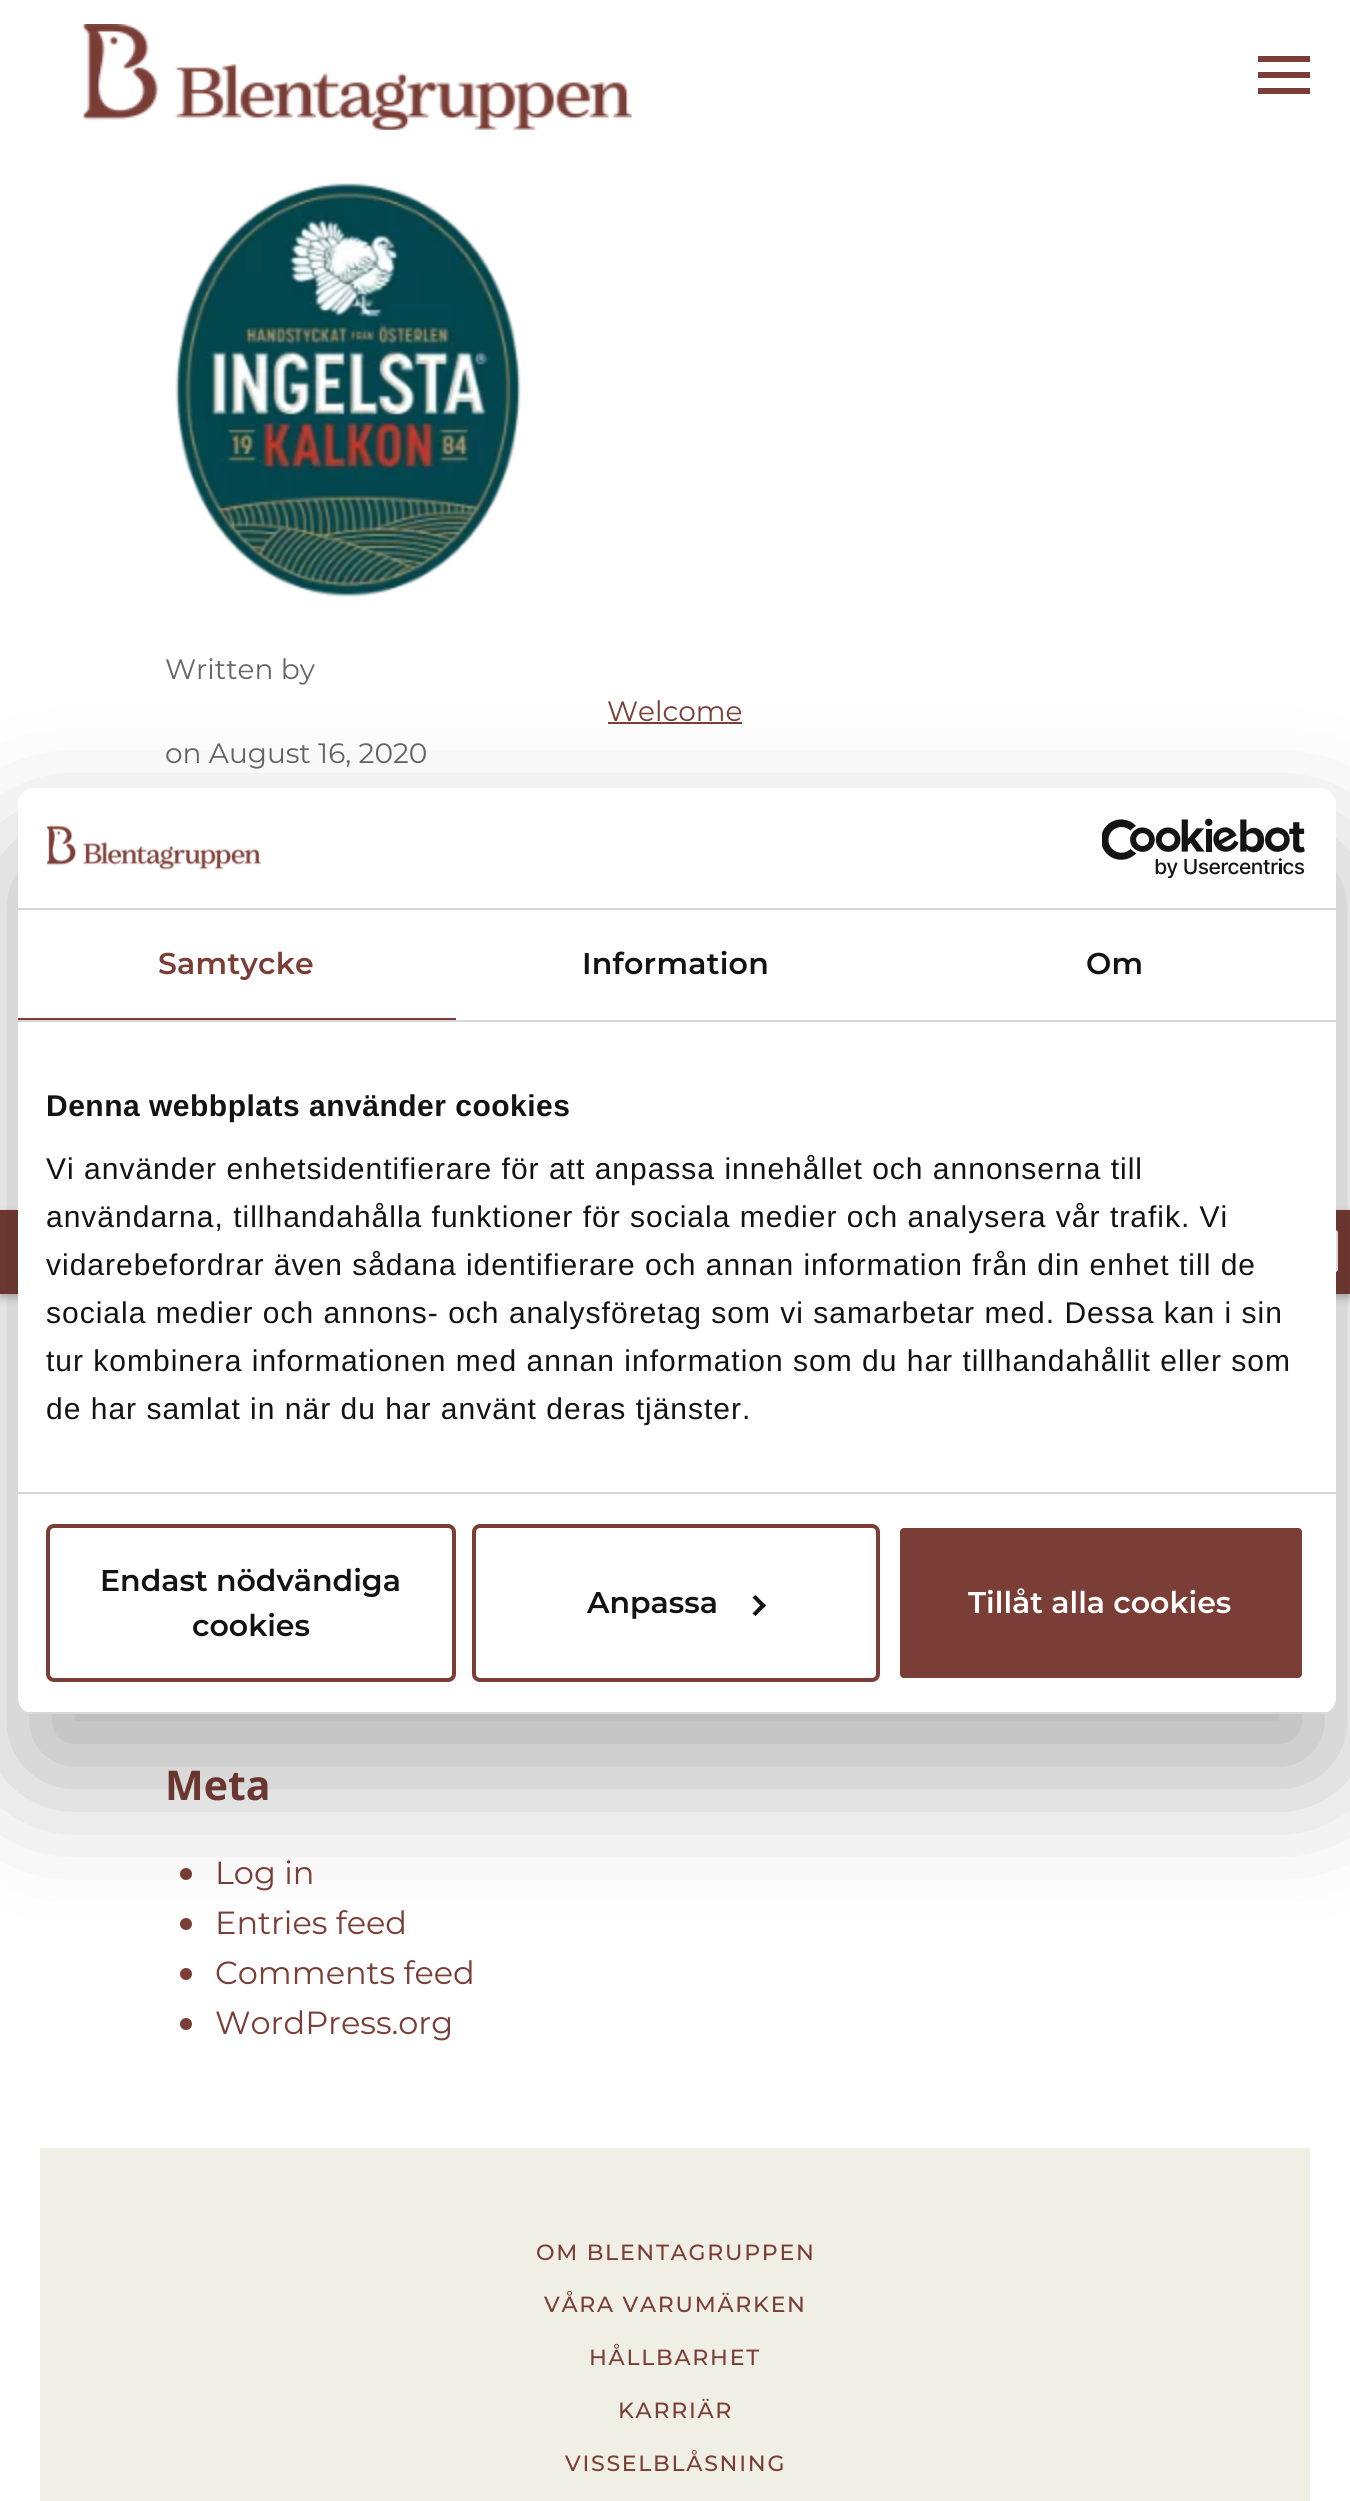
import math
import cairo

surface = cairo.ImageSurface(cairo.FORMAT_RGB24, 1350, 2501)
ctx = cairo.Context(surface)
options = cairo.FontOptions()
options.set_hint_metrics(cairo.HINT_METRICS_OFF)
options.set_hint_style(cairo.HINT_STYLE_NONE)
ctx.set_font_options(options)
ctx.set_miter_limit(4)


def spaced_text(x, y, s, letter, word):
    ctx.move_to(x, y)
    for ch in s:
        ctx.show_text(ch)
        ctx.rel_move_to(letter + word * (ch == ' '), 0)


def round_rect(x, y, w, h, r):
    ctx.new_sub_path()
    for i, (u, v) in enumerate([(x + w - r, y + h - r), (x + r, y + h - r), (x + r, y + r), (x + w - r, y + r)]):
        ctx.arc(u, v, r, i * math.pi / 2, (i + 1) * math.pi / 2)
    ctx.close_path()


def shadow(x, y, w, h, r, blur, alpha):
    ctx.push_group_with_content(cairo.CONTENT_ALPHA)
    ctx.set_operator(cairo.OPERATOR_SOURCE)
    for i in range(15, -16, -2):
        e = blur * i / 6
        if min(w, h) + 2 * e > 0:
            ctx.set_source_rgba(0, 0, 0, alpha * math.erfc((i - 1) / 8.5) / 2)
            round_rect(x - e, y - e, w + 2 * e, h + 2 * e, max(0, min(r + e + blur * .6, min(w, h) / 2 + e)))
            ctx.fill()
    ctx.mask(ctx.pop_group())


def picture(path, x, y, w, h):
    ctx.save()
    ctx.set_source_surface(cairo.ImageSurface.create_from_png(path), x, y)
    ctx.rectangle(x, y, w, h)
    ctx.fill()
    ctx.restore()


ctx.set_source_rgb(1, 1, 1)
ctx.paint()
picture("img1.png", 83, 24, 549, 106)
ctx.set_source_rgb(0.478, 0.243, 0.216)
ctx.rectangle(1258, 56, 52, 6)
ctx.fill()
ctx.rectangle(1258, 72, 52, 6)
ctx.fill()
ctx.rectangle(1258, 88, 52, 6)
ctx.fill()
picture("img2.png", 175, 183, 346, 414)
ctx.select_font_face("Montserrat")
ctx.set_font_size(28)
ctx.set_source_rgb(0.4, 0.4, 0.4)
ctx.move_to(165, 679)
ctx.show_text("Written by")
ctx.set_source_rgb(0.478, 0.243, 0.216)
ctx.move_to(607, 721)
ctx.show_text("Welcome")
ctx.rectangle(608, 722, 134, 2)
ctx.fill()
ctx.set_source_rgb(0.4, 0.4, 0.4)
ctx.move_to(165, 763)
ctx.show_text("on August 16, 2020")
ctx.select_font_face("Open Sans", cairo.FONT_SLANT_NORMAL, cairo.FONT_WEIGHT_BOLD)
ctx.set_font_size(41)
ctx.set_source_rgb(0.478, 0.243, 0.216)
ctx.move_to(165, 1800)
ctx.show_text("Meta")
ctx.new_path()
ctx.arc(186, 1874, 6, 0, 2 * math.pi)
ctx.fill()
ctx.select_font_face("Montserrat")
ctx.set_font_size(32)
ctx.move_to(215, 1884)
ctx.show_text("Log in")
ctx.new_path()
ctx.arc(186, 1924, 6, 0, 2 * math.pi)
ctx.fill()
ctx.move_to(215, 1934)
ctx.show_text("Entries feed")
ctx.new_path()
ctx.arc(186, 1974, 6, 0, 2 * math.pi)
ctx.fill()
ctx.move_to(215, 1984)
ctx.show_text("Comments feed")
ctx.new_path()
ctx.arc(186, 2024, 6, 0, 2 * math.pi)
ctx.fill()
ctx.move_to(215, 2034)
ctx.show_text("WordPress.org")
ctx.set_source_rgb(0, 0, 0)
shadow(0, 1214, 84, 84, 0, 4, 0.25)
ctx.set_source_rgb(0.478, 0.243, 0.216)
ctx.rectangle(0, 1210, 18, 84)
ctx.fill()
ctx.set_source_rgb(0, 0, 0)
shadow(1266, 1214, 84, 84, 0, 4, 0.25)
ctx.set_source_rgb(0.478, 0.243, 0.216)
ctx.rectangle(1336, 1210, 14, 84)
ctx.fill()
picture("img5.png", 1336, 1230, 2, 42)
ctx.set_source_rgb(0, 0, 0)
shadow(18, 852, 1318, 926, 16, 68, 0.3)
ctx.set_source_rgb(1, 1, 1)
round_rect(18, 788, 1318, 926, 16)
ctx.fill()
ctx.set_source_rgb(0.839, 0.839, 0.839)
ctx.rectangle(18, 908, 1318, 2)
ctx.fill()
picture("img3.png", 47, 825, 214, 45)
picture("img4.png", 1102, 818, 203, 60)
ctx.rectangle(18, 1020, 1318, 2)
ctx.fill()
ctx.set_source_rgb(0.478, 0.243, 0.212)
ctx.rectangle(18, 1018, 438, 2)
ctx.fill()
ctx.select_font_face("Montserrat SemiBold")
ctx.set_font_size(30)
ctx.set_source_rgb(0.478, 0.243, 0.216)
spaced_text(158, 974, "Samtycke", 0.25, 0)
ctx.set_source_rgb(0.078, 0.078, 0.078)
spaced_text(582, 974, "Information", 0.25, 0)
spaced_text(1086, 974, "Om", 0.25, 0)
ctx.set_source_rgb(0.839, 0.839, 0.839)
ctx.rectangle(18, 1492, 1318, 2)
ctx.fill()
ctx.select_font_face("Liberation Sans", cairo.FONT_SLANT_NORMAL, cairo.FONT_WEIGHT_BOLD)
ctx.set_source_rgb(0.078, 0.078, 0.078)
spaced_text(46, 1116, "Denna webbplats använder cookies", 0.5, 0)
ctx.select_font_face("Liberation Sans")
spaced_text(46, 1179, "Vi använder enhetsidentifierare för att anpassa innehållet och annonserna till", 1, 0)
spaced_text(46, 1227, "användarna, tillhandahålla funktioner för sociala medier och analysera vår trafik. Vi", 1, 0)
spaced_text(46, 1275, "vidarebefordrar även sådana identifierare och annan information från din enhet till de", 1, 0)
spaced_text(46, 1323, "sociala medier och annons- och analysföretag som vi samarbetar med. Dessa kan i sin", 1, 0)
spaced_text(46, 1371, "tur kombinera informationen med annan information som du har tillhandahållit eller som", 1, 0)
spaced_text(46, 1419, "de har samlat in när du har använt deras tjänster.", 1, 0)
ctx.save()
round_rect(18, 788, 1318, 926, 16)
ctx.clip()
ctx.set_source_rgb(0.839, 0.839, 0.839)
ctx.rectangle(18, 1712, 1318, 2)
ctx.fill()
ctx.restore()
round_rect(48, 1526, 406, 154, 6)
ctx.set_source_rgb(0.478, 0.243, 0.212)
ctx.set_line_width(4)
ctx.stroke()
ctx.select_font_face("Montserrat SemiBold")
ctx.set_source_rgb(0.078, 0.078, 0.078)
ctx.move_to(100, 1591)
ctx.show_text("Endast nödvändiga")
ctx.move_to(192, 1636)
ctx.show_text("cookies")
round_rect(474, 1526, 404, 154, 6)
ctx.set_source_rgb(0.478, 0.243, 0.212)
ctx.stroke()
ctx.set_source_rgb(0.078, 0.078, 0.078)
ctx.move_to(587, 1613)
ctx.show_text("Anpassa")
ctx.new_path()
ctx.move_to(755.5, 1595)
ctx.line_to(766, 1605.5)
ctx.line_to(763, 1608.5)
ctx.line_to(752.5, 1597.5)
ctx.close_path()
ctx.fill()
ctx.new_path()
ctx.move_to(763, 1602.5)
ctx.line_to(766, 1605.5)
ctx.line_to(755.5, 1616)
ctx.line_to(752.5, 1613.5)
ctx.close_path()
ctx.fill()
ctx.set_source_rgb(0.478, 0.243, 0.212)
round_rect(898, 1526, 406, 154, 6)
ctx.fill_preserve()
ctx.set_source_rgb(1, 1, 1)
ctx.stroke()
ctx.move_to(968, 1613)
ctx.show_text("Tillåt alla cookies")
ctx.set_source_rgb(0.941, 0.937, 0.898)
ctx.rectangle(40, 2148, 1270, 353)
ctx.fill()
ctx.select_font_face("Montserrat Medium")
ctx.set_font_size(22)
ctx.set_source_rgb(0.478, 0.243, 0.216)
spaced_text(536, 2260, "OM BLENTAGRUPPEN", 1.75, 0)
spaced_text(544, 2312, "VÅRA VARUMÄRKEN", 1.75, 0)
spaced_text(589, 2365, "HÅLLBARHET", 1.75, 0)
spaced_text(618, 2418, "KARRIÄR", 1.75, 0)
spaced_text(565, 2471, "VISSELBLÅSNING", 1.75, 0)
surface.write_to_png("page.png")
